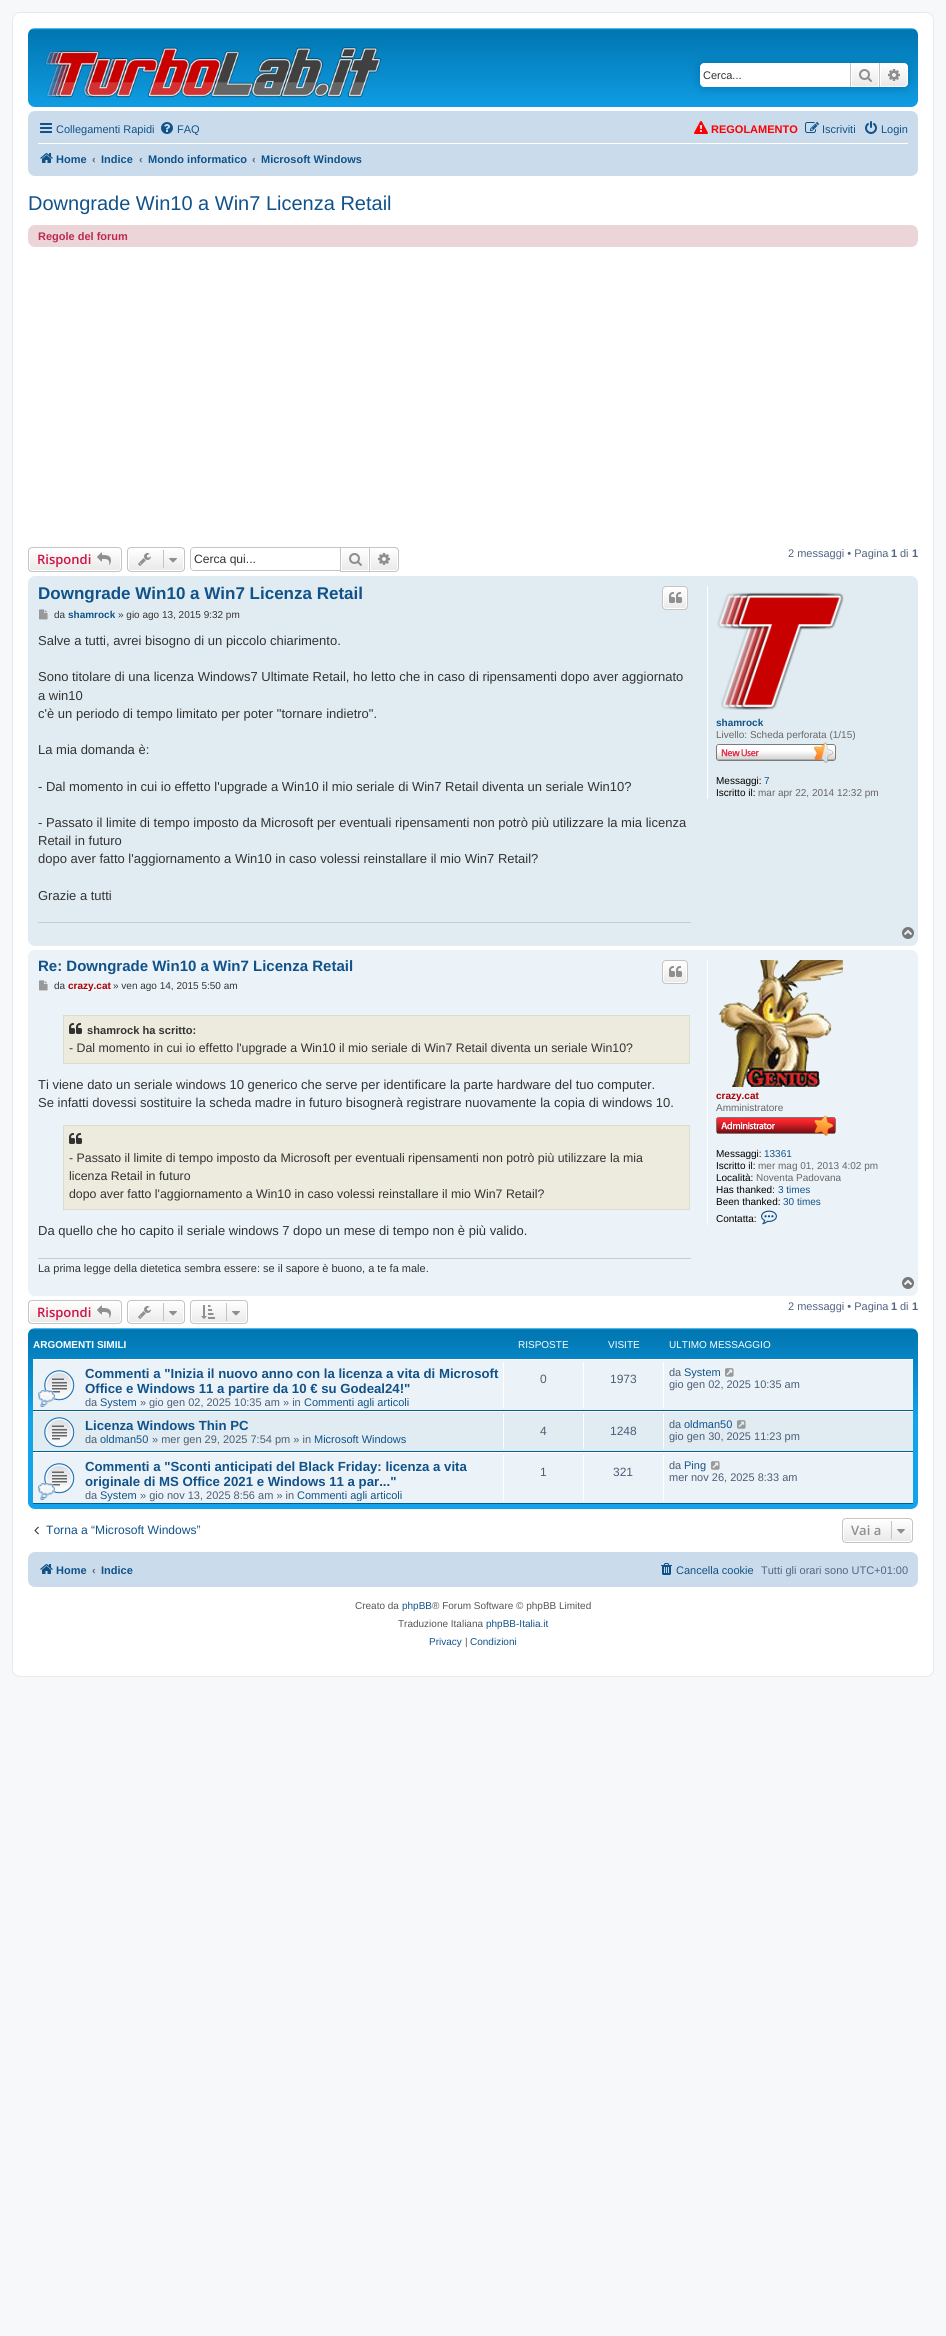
import math
import cairo

surface = cairo.ImageSurface(cairo.FORMAT_RGB24, 946, 2336)
ctx = cairo.Context(surface)
options = cairo.FontOptions()
options.set_hint_metrics(cairo.HINT_METRICS_OFF)
options.set_hint_style(cairo.HINT_STYLE_NONE)
ctx.set_font_options(options)
ctx.set_miter_limit(4)


def round_rect(x, y, w, h, r):
    ctx.new_sub_path()
    for i, (u, v) in enumerate([(x + w - r, y + h - r), (x + r, y + h - r), (x + r, y + r), (x + w - r, y + r)]):
        ctx.arc(u, v, r, i * math.pi / 2, (i + 1) * math.pi / 2)
    ctx.close_path()


def shadow(x, y, w, h, r, blur, alpha):
    ctx.push_group_with_content(cairo.CONTENT_ALPHA)
    ctx.set_operator(cairo.OPERATOR_SOURCE)
    for i in range(15, -16, -2):
        e = blur * i / 6
        if min(w, h) + 2 * e > 0:
            ctx.set_source_rgba(0, 0, 0, alpha * math.erfc((i - 1) / 8.5) / 2)
            round_rect(x - e, y - e, w + 2 * e, h + 2 * e, max(0, min(r + e + blur * .6, min(w, h) / 2 + e)))
            ctx.fill()
    ctx.mask(ctx.pop_group())


def picture(path, x, y, w, h):
    ctx.save()
    ctx.set_source_surface(cairo.ImageSurface.create_from_png(path), x, y)
    ctx.rectangle(x, y, w, h)
    ctx.fill()
    ctx.restore()


ctx.set_source_rgb(0.961, 0.969, 0.98)
ctx.paint()
ctx.set_source_rgb(1, 1, 1)
round_rect(12.5, 12.5, 921, 1664, 7.5)
ctx.fill_preserve()
ctx.set_source_rgb(0.902, 0.914, 0.929)
ctx.set_line_width(1)
ctx.stroke()
gradient = cairo.LinearGradient(473, 28, 473, 120)
gradient.add_color_stop_rgba(0, 0.416, 0.808, 1, 1)
gradient.add_color_stop_rgba(0.02, 0, 0.463, 0.694, 1)
gradient.add_color_stop_rgba(1, 0.071, 0.639, 0.922, 1)
ctx.set_source(gradient)
round_rect(28, 28, 890, 79, 7)
ctx.fill()
picture("img1.png", 45, 47, 336, 51)
ctx.set_source_rgb(0, 0.459, 0.69)
shadow(700, 63, 208, 24, 4, 5, 1)
ctx.set_source_rgb(1, 1, 1)
ctx.new_path()
ctx.move_to(704, 63)
ctx.line_to(850, 63)
ctx.line_to(850, 87)
ctx.line_to(704, 87)
ctx.curve_to(702, 87, 700, 85, 700, 83)
ctx.line_to(700, 67)
ctx.curve_to(700, 65, 702, 63, 704, 63)
ctx.close_path()
ctx.fill()
ctx.select_font_face("Liberation Sans")
ctx.set_font_size(11)
ctx.set_source_rgb(0.2, 0.2, 0.2)
ctx.move_to(703, 79)
ctx.show_text("Cerca...")
gradient = cairo.LinearGradient(865, 63, 865, 87)
gradient.add_color_stop_rgba(0, 1, 1, 1, 1)
gradient.add_color_stop_rgba(1, 0.914, 0.914, 0.914, 1)
ctx.set_source(gradient)
ctx.rectangle(852, 64, 26, 22)
ctx.fill()
ctx.rectangle(851.5, 63.5, 27, 23)
ctx.set_source_rgb(1, 1, 1)
ctx.stroke()
ctx.set_source_rgb(0.78, 0.765, 0.749)
ctx.rectangle(879, 63, 1, 24)
ctx.fill()
ctx.rectangle(850, 63, 1, 24)
ctx.fill()
picture("img2.png", 859, 69, 13, 13)
gradient = cairo.LinearGradient(894, 63, 894, 87)
gradient.add_color_stop_rgba(0, 1, 1, 1, 1)
gradient.add_color_stop_rgba(1, 0.914, 0.914, 0.914, 1)
ctx.set_source(gradient)
ctx.new_path()
ctx.move_to(880.5, 63.5)
ctx.line_to(904, 63.5)
ctx.curve_to(906, 63.5, 907.5, 65, 907.5, 67)
ctx.line_to(907.5, 83)
ctx.curve_to(907.5, 85, 906, 86.5, 904, 86.5)
ctx.line_to(880.5, 86.5)
ctx.close_path()
ctx.fill_preserve()
ctx.set_source_rgb(1, 1, 1)
ctx.stroke()
picture("img3.png", 888, 69, 12, 12)
ctx.set_source_rgb(0.792, 0.863, 0.922)
round_rect(28, 111, 890, 65, 7)
ctx.fill()
picture("img4.png", 40, 123, 12, 10)
ctx.set_source_rgb(0.063, 0.322, 0.537)
ctx.move_to(56, 133)
ctx.show_text("Collegamenti Rapidi")
picture("img5.png", 161, 122, 12, 12)
ctx.move_to(177, 133)
ctx.show_text("FAQ")
picture("img6.png", 694, 121, 14, 13)
ctx.select_font_face("Liberation Sans", cairo.FONT_SLANT_NORMAL, cairo.FONT_WEIGHT_BOLD)
ctx.set_source_rgb(1, 0, 0)
ctx.move_to(711, 133)
ctx.show_text("REGOLAMENTO")
picture("img7.png", 805, 122, 14, 11)
ctx.select_font_face("Liberation Sans")
ctx.set_source_rgb(0.063, 0.322, 0.537)
ctx.move_to(822, 133)
ctx.show_text("Iscriviti")
picture("img8.png", 865, 121, 12, 13)
ctx.move_to(881, 133)
ctx.show_text("Login")
ctx.set_source_rgb(1, 1, 1)
ctx.rectangle(38, 143, 870, 1)
ctx.fill()
picture("img9.png", 40, 153, 13, 10)
ctx.select_font_face("Liberation Sans", cairo.FONT_SLANT_NORMAL, cairo.FONT_WEIGHT_BOLD)
ctx.set_source_rgb(0.063, 0.322, 0.537)
ctx.move_to(56, 163)
ctx.show_text("Home")
ctx.set_source_rgb(0.325, 0.392, 0.51)
ctx.move_to(92, 163)
ctx.show_text("‹")
ctx.set_source_rgb(0.063, 0.322, 0.537)
ctx.move_to(101, 163)
ctx.show_text("Indice")
ctx.set_source_rgb(0.325, 0.392, 0.51)
ctx.move_to(139, 163)
ctx.show_text("‹")
ctx.set_source_rgb(0.063, 0.322, 0.537)
ctx.move_to(148, 163)
ctx.show_text("Mondo informatico")
ctx.set_source_rgb(0.325, 0.392, 0.51)
ctx.move_to(252, 163)
ctx.show_text("‹")
ctx.set_source_rgb(0.063, 0.322, 0.537)
ctx.move_to(261, 163)
ctx.show_text("Microsoft Windows")
ctx.select_font_face("Liberation Sans")
ctx.set_font_size(20)
ctx.move_to(28, 210)
ctx.show_text("Downgrade Win10 a Win7 Licenza Retail")
ctx.set_source_rgb(0.925, 0.835, 0.847)
round_rect(28, 225, 890, 22, 7)
ctx.fill()
ctx.select_font_face("Liberation Sans", cairo.FONT_SLANT_NORMAL, cairo.FONT_WEIGHT_BOLD)
ctx.set_font_size(11)
ctx.set_source_rgb(0.737, 0.165, 0.302)
ctx.move_to(38, 240)
ctx.show_text("Regole del forum")
ctx.save()
round_rect(28, 547, 94, 25, 4)
ctx.clip()
gradient = cairo.LinearGradient(75, 548, 75, 571)
gradient.add_color_stop_rgba(0, 1, 1, 1, 1)
gradient.add_color_stop_rgba(1, 0.914, 0.914, 0.914, 1)
ctx.set_source(gradient)
ctx.rectangle(28, 548, 94, 23)
ctx.fill()
ctx.restore()
round_rect(29.5, 548.5, 91, 22, 2.5)
ctx.set_source_rgb(1, 1, 1)
ctx.stroke()
round_rect(28.5, 547.5, 93, 24, 3.5)
ctx.set_source_rgb(0.78, 0.765, 0.749)
ctx.stroke()
ctx.select_font_face("Open Sans SemiBold")
ctx.set_font_size(13)
ctx.set_source_rgb(0.827, 0.067, 0.255)
ctx.move_to(37, 564)
ctx.show_text("Rispondi")
picture("img10.png", 97, 552, 14, 13)
ctx.save()
round_rect(127, 547, 58, 25, 4)
ctx.clip()
gradient = cairo.LinearGradient(156, 548, 156, 571)
gradient.add_color_stop_rgba(0, 1, 1, 1, 1)
gradient.add_color_stop_rgba(1, 0.914, 0.914, 0.914, 1)
ctx.set_source(gradient)
ctx.rectangle(127, 548, 58, 23)
ctx.fill()
ctx.restore()
round_rect(128.5, 548.5, 55, 22, 2.5)
ctx.set_source_rgb(1, 1, 1)
ctx.stroke()
round_rect(127.5, 547.5, 57, 24, 3.5)
ctx.set_source_rgb(0.78, 0.765, 0.749)
ctx.stroke()
picture("img11.png", 138, 553, 13, 13)
ctx.rectangle(163, 550, 1, 18)
ctx.fill()
picture("img12.png", 169, 558, 8, 5)
ctx.set_fill_rule(cairo.FILL_RULE_EVEN_ODD)
ctx.new_path()
ctx.move_to(194, 547)
ctx.line_to(340, 547)
ctx.line_to(340, 571)
ctx.line_to(194, 571)
ctx.curve_to(192, 571, 190, 569, 190, 567)
ctx.line_to(190, 551)
ctx.curve_to(190, 549, 192, 547, 194, 547)
ctx.close_path()
ctx.move_to(194, 548)
ctx.line_to(340, 548)
ctx.line_to(340, 570)
ctx.line_to(194, 570)
ctx.curve_to(192, 570, 191, 569, 191, 567)
ctx.line_to(191, 551)
ctx.curve_to(191, 549, 192, 548, 194, 548)
ctx.close_path()
ctx.fill()
ctx.select_font_face("Liberation Sans")
ctx.set_font_size(12.1)
ctx.set_source_rgb(0.2, 0.2, 0.2)
ctx.move_to(194, 563)
ctx.show_text("Cerca qui...")
gradient = cairo.LinearGradient(355, 548, 355, 571)
gradient.add_color_stop_rgba(0, 1, 1, 1, 1)
gradient.add_color_stop_rgba(1, 0.914, 0.914, 0.914, 1)
ctx.set_source(gradient)
ctx.rectangle(342, 551, 26, 19)
ctx.fill()
ctx.rectangle(340.5, 547.5, 29, 24)
ctx.set_source_rgb(0.78, 0.765, 0.749)
ctx.stroke()
picture("img13.png", 349, 553, 13, 13)
gradient = cairo.LinearGradient(384, 548, 384, 571)
gradient.add_color_stop_rgba(0, 1, 1, 1, 1)
gradient.add_color_stop_rgba(1, 0.914, 0.914, 0.914, 1)
ctx.set_source(gradient)
ctx.new_path()
ctx.move_to(370.5, 548.5)
ctx.line_to(395, 548.5)
ctx.curve_to(396.5, 548.5, 397.5, 549.5, 397.5, 551)
ctx.line_to(397.5, 568)
ctx.curve_to(397.5, 569.5, 396.5, 570.5, 395, 570.5)
ctx.line_to(370.5, 570.5)
ctx.close_path()
ctx.fill_preserve()
ctx.set_source_rgb(1, 1, 1)
ctx.stroke()
ctx.set_source_rgb(0.78, 0.765, 0.749)
ctx.new_path()
ctx.move_to(370, 547)
ctx.line_to(395, 547)
ctx.curve_to(397, 547, 399, 549, 399, 551)
ctx.line_to(399, 568)
ctx.curve_to(399, 570, 397, 572, 395, 572)
ctx.line_to(370, 572)
ctx.close_path()
ctx.move_to(370, 548)
ctx.line_to(395, 548)
ctx.curve_to(396.5, 548, 398, 549.5, 398, 551)
ctx.line_to(398, 568)
ctx.curve_to(398, 569.5, 396.5, 571, 395, 571)
ctx.line_to(370, 571)
ctx.close_path()
ctx.fill()
picture("img14.png", 378, 553, 12, 12)
ctx.set_font_size(11)
ctx.set_source_rgb(0.325, 0.392, 0.51)
ctx.move_to(788, 557)
ctx.show_text("2 messaggi • Pagina")
ctx.select_font_face("Liberation Sans", cairo.FONT_SLANT_NORMAL, cairo.FONT_WEIGHT_BOLD)
ctx.move_to(891, 557)
ctx.show_text("1")
ctx.select_font_face("Liberation Sans")
ctx.move_to(900, 557)
ctx.show_text("di")
ctx.select_font_face("Liberation Sans", cairo.FONT_SLANT_NORMAL, cairo.FONT_WEIGHT_BOLD)
ctx.move_to(912, 557)
ctx.show_text("1")
ctx.set_source_rgb(0.882, 0.922, 0.949)
round_rect(28, 576, 890, 370, 7)
ctx.fill()
ctx.set_font_size(17)
ctx.set_source_rgb(0.063, 0.322, 0.537)
ctx.move_to(38, 599)
ctx.show_text("Downgrade Win10 a Win7 Licenza Retail")
ctx.save()
ctx.set_fill_rule(cairo.FILL_RULE_WINDING)
round_rect(662, 586, 26, 24, 4)
ctx.clip()
gradient = cairo.LinearGradient(675, 587, 675, 609)
gradient.add_color_stop_rgba(0, 1, 1, 1, 1)
gradient.add_color_stop_rgba(1, 0.914, 0.914, 0.914, 1)
ctx.set_source(gradient)
ctx.rectangle(662, 587, 26, 22)
ctx.fill()
ctx.restore()
round_rect(663.5, 587.5, 23, 21, 2.5)
ctx.set_source_rgb(1, 1, 1)
ctx.stroke()
round_rect(662.5, 586.5, 25, 23, 3.5)
ctx.set_source_rgb(0.78, 0.765, 0.749)
ctx.stroke()
picture("img15.png", 669, 592, 13, 11)
picture("img16.png", 39, 609, 9, 11)
ctx.select_font_face("Liberation Sans")
ctx.set_font_size(10)
ctx.set_source_rgb(0.2, 0.2, 0.2)
ctx.move_to(54, 618)
ctx.show_text("da")
ctx.select_font_face("Liberation Sans", cairo.FONT_SLANT_NORMAL, cairo.FONT_WEIGHT_BOLD)
ctx.set_source_rgb(0.063, 0.322, 0.537)
ctx.move_to(68, 618)
ctx.show_text("shamrock")
ctx.select_font_face("Liberation Sans")
ctx.set_source_rgb(0.2, 0.2, 0.2)
ctx.move_to(118, 618)
ctx.show_text("» gio ago 13, 2015 9:32 pm")
ctx.set_font_size(13)
ctx.move_to(38, 645)
ctx.show_text("Salve a tutti, avrei bisogno di un piccolo chiarimento.")
ctx.move_to(38, 681)
ctx.show_text("Sono titolare di una licenza Windows7 Ultimate Retail, ho letto che in caso di ripensamenti dopo aver aggiornato")
ctx.move_to(38, 700)
ctx.show_text("a win10")
ctx.move_to(38, 718)
ctx.show_text("c'è un periodo di tempo limitato per poter \"tornare indietro\".")
ctx.move_to(38, 754)
ctx.show_text("La mia domanda è:")
ctx.move_to(38, 791)
ctx.show_text("- Dal momento in cui io effetto l'upgrade a Win10 il mio seriale di Win7 Retail diventa un seriale Win10?")
ctx.move_to(38, 827)
ctx.show_text("- Passato il limite di tempo imposto da Microsoft per eventuali ripensamenti non potrò più utilizzare la mia licenza")
ctx.move_to(38, 845)
ctx.show_text("Retail in futuro")
ctx.move_to(38, 863)
ctx.show_text("dopo aver fatto l'aggiornamento a Win10 in caso volessi reinstallare il mio Win7 Retail?")
ctx.move_to(38, 900)
ctx.show_text("Grazie a tutti")
ctx.set_source_rgb(0.8, 0.8, 0.8)
ctx.rectangle(38, 922, 653, 1)
ctx.fill()
ctx.set_source_rgb(1, 1, 1)
ctx.rectangle(707, 586, 1, 213)
ctx.fill()
picture("img17.png", 717, 592, 127, 118)
ctx.select_font_face("Liberation Sans", cairo.FONT_SLANT_NORMAL, cairo.FONT_WEIGHT_BOLD)
ctx.set_font_size(10)
ctx.set_source_rgb(0.063, 0.322, 0.537)
ctx.move_to(716, 726)
ctx.show_text("shamrock")
ctx.select_font_face("Liberation Sans")
ctx.set_source_rgb(0.4, 0.4, 0.4)
ctx.move_to(716, 738)
ctx.show_text("Livello: Scheda perforata (1/15)")
picture("img18.png", 716, 742, 120, 22)
ctx.set_source_rgb(0, 0, 0)
ctx.move_to(716, 784)
ctx.show_text("Messaggi:")
ctx.set_source_rgb(0.063, 0.322, 0.537)
ctx.move_to(764, 784)
ctx.show_text("7")
ctx.set_source_rgb(0, 0, 0)
ctx.move_to(716, 796)
ctx.show_text("Iscritto il:")
ctx.set_source_rgb(0.4, 0.4, 0.4)
ctx.move_to(758, 796)
ctx.show_text("mar apr 22, 2014 12:32 pm")
picture("img19.png", 902, 927, 12, 12)
ctx.set_source_rgb(0.925, 0.953, 0.969)
round_rect(28, 950, 890, 346, 7)
ctx.fill()
ctx.select_font_face("Liberation Sans", cairo.FONT_SLANT_NORMAL, cairo.FONT_WEIGHT_BOLD)
ctx.set_font_size(15)
ctx.set_source_rgb(0.063, 0.322, 0.537)
ctx.move_to(38, 971)
ctx.show_text("Re: Downgrade Win10 a Win7 Licenza Retail")
ctx.save()
ctx.set_fill_rule(cairo.FILL_RULE_WINDING)
round_rect(662, 960, 26, 24, 4)
ctx.clip()
gradient = cairo.LinearGradient(675, 961, 675, 983)
gradient.add_color_stop_rgba(0, 1, 1, 1, 1)
gradient.add_color_stop_rgba(1, 0.914, 0.914, 0.914, 1)
ctx.set_source(gradient)
ctx.rectangle(662, 961, 26, 22)
ctx.fill()
ctx.restore()
round_rect(663.5, 961.5, 23, 21, 2.5)
ctx.set_source_rgb(1, 1, 1)
ctx.stroke()
round_rect(662.5, 960.5, 25, 23, 3.5)
ctx.set_source_rgb(0.78, 0.765, 0.749)
ctx.stroke()
picture("img15.png", 669, 966, 13, 11)
picture("img20.png", 39, 980, 9, 11)
ctx.select_font_face("Liberation Sans")
ctx.set_font_size(10)
ctx.set_source_rgb(0.2, 0.2, 0.2)
ctx.move_to(54, 989)
ctx.show_text("da")
ctx.select_font_face("Liberation Sans", cairo.FONT_SLANT_NORMAL, cairo.FONT_WEIGHT_BOLD)
ctx.set_source_rgb(0.667, 0, 0)
ctx.move_to(68, 989)
ctx.show_text("crazy.cat")
ctx.select_font_face("Liberation Sans")
ctx.set_source_rgb(0.2, 0.2, 0.2)
ctx.move_to(113, 989)
ctx.show_text("» ven ago 14, 2015 5:50 am")
ctx.set_source_rgb(0.922, 0.918, 0.867)
ctx.rectangle(63.5, 1015.5, 626, 48)
ctx.fill_preserve()
ctx.set_source_rgb(0.859, 0.859, 0.808)
ctx.stroke()
picture("img21.png", 69, 1023, 13, 11)
ctx.select_font_face("Liberation Sans", cairo.FONT_SLANT_NORMAL, cairo.FONT_WEIGHT_BOLD)
ctx.set_font_size(11.1)
ctx.set_source_rgb(0.2, 0.2, 0.2)
ctx.move_to(87, 1034)
ctx.show_text("shamrock ha scritto:")
ctx.select_font_face("Liberation Sans")
ctx.set_font_size(12.35)
ctx.move_to(69, 1052)
ctx.show_text("- Dal momento in cui io effetto l'upgrade a Win10 il mio seriale di Win7 Retail diventa un seriale Win10?")
ctx.set_font_size(13)
ctx.move_to(38, 1089)
ctx.show_text("Ti viene dato un seriale windows 10 generico che serve per identificare la parte hardware del tuo computer.")
ctx.move_to(38, 1107)
ctx.show_text("Se infatti dovessi sostituire la scheda madre in futuro bisognerà registrare nuovamente la copia di windows 10.")
ctx.set_source_rgb(0.922, 0.918, 0.867)
ctx.rectangle(63.5, 1125.5, 626, 84)
ctx.fill_preserve()
ctx.set_source_rgb(0.859, 0.859, 0.808)
ctx.stroke()
picture("img21.png", 69, 1133, 13, 11)
ctx.set_font_size(12.35)
ctx.set_source_rgb(0.2, 0.2, 0.2)
ctx.move_to(69, 1162)
ctx.show_text("- Passato il limite di tempo imposto da Microsoft per eventuali ripensamenti non potrò più utilizzare la mia")
ctx.move_to(69, 1180)
ctx.show_text("licenza Retail in futuro")
ctx.move_to(69, 1198)
ctx.show_text("dopo aver fatto l'aggiornamento a Win10 in caso volessi reinstallare il mio Win7 Retail?")
ctx.set_font_size(13)
ctx.move_to(38, 1235)
ctx.show_text("Da quello che ho capito il seriale windows 7 dopo un mese di tempo non è più valido.")
ctx.set_source_rgb(0.8, 0.8, 0.8)
ctx.rectangle(38, 1258, 653, 1)
ctx.fill()
ctx.set_font_size(11)
ctx.set_source_rgb(0.2, 0.2, 0.2)
ctx.move_to(38, 1272)
ctx.show_text("La prima legge della dietetica sembra essere: se il sapore è buono, a te fa male.")
ctx.set_source_rgb(1, 1, 1)
ctx.rectangle(707, 960, 1, 265)
ctx.fill()
picture("img22.png", 718, 960, 125, 127)
ctx.select_font_face("Liberation Sans", cairo.FONT_SLANT_NORMAL, cairo.FONT_WEIGHT_BOLD)
ctx.set_font_size(10)
ctx.set_source_rgb(0.667, 0, 0)
ctx.move_to(716, 1099)
ctx.show_text("crazy.cat")
ctx.select_font_face("Liberation Sans")
ctx.set_source_rgb(0.4, 0.4, 0.4)
ctx.move_to(716, 1111)
ctx.show_text("Amministratore")
picture("img23.png", 716, 1115, 120, 22)
ctx.set_source_rgb(0, 0, 0)
ctx.move_to(716, 1157)
ctx.show_text("Messaggi:")
ctx.set_source_rgb(0.063, 0.322, 0.537)
ctx.move_to(764, 1157)
ctx.show_text("13361")
ctx.set_source_rgb(0, 0, 0)
ctx.move_to(716, 1169)
ctx.show_text("Iscritto il:")
ctx.set_source_rgb(0.4, 0.4, 0.4)
ctx.move_to(758, 1169)
ctx.show_text("mer mag 01, 2013 4:02 pm")
ctx.set_source_rgb(0, 0, 0)
ctx.move_to(716, 1181)
ctx.show_text("Località:")
ctx.set_source_rgb(0.4, 0.4, 0.4)
ctx.move_to(756, 1181)
ctx.show_text("Noventa Padovana")
ctx.set_source_rgb(0, 0, 0)
ctx.move_to(716, 1193)
ctx.show_text("Has thanked:")
ctx.set_source_rgb(0.063, 0.322, 0.537)
ctx.move_to(778, 1193)
ctx.show_text("3 times")
ctx.set_source_rgb(0, 0, 0)
ctx.move_to(716, 1205)
ctx.show_text("Been thanked:")
ctx.set_source_rgb(0.063, 0.322, 0.537)
ctx.move_to(783, 1205)
ctx.show_text("30 times")
ctx.set_source_rgb(0, 0, 0)
ctx.move_to(716, 1222)
ctx.show_text("Contatta:")
picture("img24.png", 761, 1210, 16, 15)
picture("img25.png", 902, 1277, 12, 12)
ctx.save()
ctx.set_fill_rule(cairo.FILL_RULE_WINDING)
round_rect(28, 1300, 94, 24, 4)
ctx.clip()
gradient = cairo.LinearGradient(75, 1301, 75, 1323)
gradient.add_color_stop_rgba(0, 1, 1, 1, 1)
gradient.add_color_stop_rgba(1, 0.914, 0.914, 0.914, 1)
ctx.set_source(gradient)
ctx.rectangle(28, 1301, 94, 22)
ctx.fill()
ctx.restore()
round_rect(29.5, 1301.5, 91, 21, 2.5)
ctx.set_source_rgb(1, 1, 1)
ctx.stroke()
round_rect(28.5, 1300.5, 93, 23, 3.5)
ctx.set_source_rgb(0.78, 0.765, 0.749)
ctx.stroke()
ctx.select_font_face("Open Sans SemiBold")
ctx.set_font_size(13)
ctx.set_source_rgb(0.827, 0.067, 0.255)
ctx.move_to(37, 1317)
ctx.show_text("Rispondi")
picture("img10.png", 97, 1305, 14, 13)
ctx.save()
ctx.set_fill_rule(cairo.FILL_RULE_WINDING)
round_rect(127, 1300, 58, 24, 4)
ctx.clip()
gradient = cairo.LinearGradient(156, 1301, 156, 1323)
gradient.add_color_stop_rgba(0, 1, 1, 1, 1)
gradient.add_color_stop_rgba(1, 0.914, 0.914, 0.914, 1)
ctx.set_source(gradient)
ctx.rectangle(127, 1301, 58, 22)
ctx.fill()
ctx.restore()
round_rect(128.5, 1301.5, 55, 21, 2.5)
ctx.set_source_rgb(1, 1, 1)
ctx.stroke()
round_rect(127.5, 1300.5, 57, 23, 3.5)
ctx.set_source_rgb(0.78, 0.765, 0.749)
ctx.stroke()
picture("img11.png", 138, 1306, 13, 13)
ctx.rectangle(163, 1303, 1, 18)
ctx.fill()
picture("img12.png", 169, 1311, 8, 5)
ctx.save()
ctx.set_fill_rule(cairo.FILL_RULE_WINDING)
round_rect(190, 1300, 58, 24, 4)
ctx.clip()
gradient = cairo.LinearGradient(219, 1301, 219, 1323)
gradient.add_color_stop_rgba(0, 1, 1, 1, 1)
gradient.add_color_stop_rgba(1, 0.914, 0.914, 0.914, 1)
ctx.set_source(gradient)
ctx.rectangle(190, 1301, 58, 22)
ctx.fill()
ctx.restore()
round_rect(191.5, 1301.5, 55, 21, 2.5)
ctx.set_source_rgb(1, 1, 1)
ctx.stroke()
round_rect(190.5, 1300.5, 57, 23, 3.5)
ctx.set_source_rgb(0.78, 0.765, 0.749)
ctx.stroke()
picture("img26.png", 201, 1305, 14, 14)
ctx.rectangle(226, 1303, 1, 18)
ctx.fill()
picture("img12.png", 232, 1311, 8, 5)
ctx.select_font_face("Liberation Sans")
ctx.set_font_size(11)
ctx.set_source_rgb(0.325, 0.392, 0.51)
ctx.move_to(788, 1310)
ctx.show_text("2 messaggi • Pagina")
ctx.select_font_face("Liberation Sans", cairo.FONT_SLANT_NORMAL, cairo.FONT_WEIGHT_BOLD)
ctx.move_to(891, 1310)
ctx.show_text("1")
ctx.select_font_face("Liberation Sans")
ctx.move_to(900, 1310)
ctx.show_text("di")
ctx.select_font_face("Liberation Sans", cairo.FONT_SLANT_NORMAL, cairo.FONT_WEIGHT_BOLD)
ctx.move_to(912, 1310)
ctx.show_text("1")
gradient = cairo.LinearGradient(473, 1328, 473, 1509)
gradient.add_color_stop_rgba(0, 0.416, 0.808, 1, 1)
gradient.add_color_stop_rgba(0.01, 0, 0.463, 0.694, 1)
gradient.add_color_stop_rgba(0.51, 0.071, 0.639, 0.922, 1)
gradient.add_color_stop_rgba(1, 0.071, 0.639, 0.922, 1)
ctx.set_source(gradient)
round_rect(28, 1328, 890, 181, 7)
ctx.fill()
ctx.set_font_size(10)
ctx.set_source_rgb(1, 1, 1)
ctx.move_to(33, 1348)
ctx.show_text("ARGOMENTI SIMILI")
ctx.select_font_face("Liberation Sans")
ctx.move_to(518, 1348)
ctx.show_text("RISPOSTE")
ctx.move_to(608, 1348)
ctx.show_text("VISITE")
ctx.move_to(669, 1348)
ctx.show_text("ULTIMO MESSAGGIO")
ctx.set_source_rgb(0.925, 0.953, 0.969)
ctx.rectangle(33, 1360, 880, 50)
ctx.fill()
ctx.set_source_rgb(1, 1, 1)
ctx.rectangle(33, 1359, 880, 1)
ctx.fill()
ctx.set_source_rgb(0, 0.376, 0.561)
ctx.rectangle(33, 1410, 880, 1)
ctx.fill()
picture("img27.png", 44, 1370, 31, 31)
picture("img28.png", 38, 1390, 17, 17)
ctx.select_font_face("Liberation Sans", cairo.FONT_SLANT_NORMAL, cairo.FONT_WEIGHT_BOLD)
ctx.set_font_size(13.2)
ctx.set_source_rgb(0.063, 0.322, 0.537)
ctx.move_to(85, 1378)
ctx.show_text("Commenti a \"Inizia il nuovo anno con la licenza a vita di Microsoft")
ctx.move_to(85, 1393)
ctx.show_text("Office e Windows 11 a partire da 10 € su Godeal24!\"")
ctx.select_font_face("Liberation Sans")
ctx.set_font_size(11)
ctx.set_source_rgb(0.298, 0.365, 0.467)
ctx.move_to(85, 1406)
ctx.show_text("da")
ctx.set_source_rgb(0.063, 0.322, 0.537)
ctx.move_to(100, 1406)
ctx.show_text("System")
ctx.set_source_rgb(0.298, 0.365, 0.467)
ctx.move_to(140, 1406)
ctx.show_text("»")
ctx.save()
ctx.set_fill_rule(cairo.FILL_RULE_WINDING)
ctx.rectangle(33, 1362, 880, 46)
ctx.clip()
ctx.move_to(149, 1406)
ctx.show_text("gio gen 02, 2025 10:35 am")
ctx.restore()
ctx.move_to(283, 1406)
ctx.show_text("» in")
ctx.set_source_rgb(0.063, 0.322, 0.537)
ctx.move_to(304, 1406)
ctx.show_text("Commenti agli articoli")
ctx.set_source_rgb(1, 1, 1)
ctx.rectangle(503, 1362, 1, 46)
ctx.fill()
ctx.set_font_size(12)
ctx.set_source_rgb(0.298, 0.365, 0.467)
ctx.move_to(540, 1383)
ctx.show_text("0")
ctx.set_source_rgb(1, 1, 1)
ctx.rectangle(583, 1362, 1, 46)
ctx.fill()
ctx.set_source_rgb(0.298, 0.365, 0.467)
ctx.move_to(610, 1383)
ctx.show_text("1973")
ctx.set_source_rgb(1, 1, 1)
ctx.rectangle(663, 1362, 1, 46)
ctx.fill()
ctx.set_font_size(11)
ctx.set_source_rgb(0.298, 0.365, 0.467)
ctx.move_to(669, 1376)
ctx.show_text("da")
ctx.set_source_rgb(0.063, 0.322, 0.537)
ctx.move_to(684, 1376)
ctx.show_text("System")
picture("img29.png", 725, 1368, 9, 9)
ctx.set_source_rgb(0.298, 0.365, 0.467)
ctx.move_to(669, 1388)
ctx.show_text("gio gen 02, 2025 10:35 am")
ctx.set_source_rgb(0.882, 0.922, 0.949)
ctx.rectangle(33, 1412, 880, 39)
ctx.fill()
ctx.set_source_rgb(1, 1, 1)
ctx.rectangle(33, 1411, 880, 1)
ctx.fill()
ctx.set_source_rgb(0, 0.376, 0.561)
ctx.rectangle(33, 1451, 880, 1)
ctx.fill()
picture("img30.png", 44, 1417, 31, 31)
ctx.select_font_face("Liberation Sans", cairo.FONT_SLANT_NORMAL, cairo.FONT_WEIGHT_BOLD)
ctx.set_font_size(13.2)
ctx.set_source_rgb(0.063, 0.322, 0.537)
ctx.move_to(85, 1430)
ctx.show_text("Licenza Windows Thin PC")
ctx.select_font_face("Liberation Sans")
ctx.set_font_size(11)
ctx.set_source_rgb(0.298, 0.365, 0.467)
ctx.move_to(85, 1443)
ctx.show_text("da")
ctx.set_source_rgb(0.063, 0.322, 0.537)
ctx.move_to(100, 1443)
ctx.show_text("oldman50")
ctx.set_source_rgb(0.298, 0.365, 0.467)
ctx.move_to(152, 1443)
ctx.show_text("» mer gen 29, 2025 7:54 pm » in")
ctx.set_source_rgb(0.063, 0.322, 0.537)
ctx.move_to(314, 1443)
ctx.show_text("Microsoft Windows")
ctx.set_source_rgb(1, 1, 1)
ctx.rectangle(503, 1414, 1, 35)
ctx.fill()
ctx.set_font_size(12)
ctx.set_source_rgb(0.298, 0.365, 0.467)
ctx.move_to(540, 1435)
ctx.show_text("4")
ctx.set_source_rgb(1, 1, 1)
ctx.rectangle(583, 1414, 1, 35)
ctx.fill()
ctx.set_source_rgb(0.298, 0.365, 0.467)
ctx.move_to(610, 1435)
ctx.show_text("1248")
ctx.set_source_rgb(1, 1, 1)
ctx.rectangle(663, 1414, 1, 35)
ctx.fill()
ctx.set_font_size(11)
ctx.set_source_rgb(0.298, 0.365, 0.467)
ctx.move_to(669, 1428)
ctx.show_text("da")
ctx.set_source_rgb(0.063, 0.322, 0.537)
ctx.move_to(684, 1428)
ctx.show_text("oldman50")
picture("img31.png", 737, 1420, 9, 9)
ctx.set_source_rgb(0.298, 0.365, 0.467)
ctx.move_to(669, 1440)
ctx.show_text("gio gen 30, 2025 11:23 pm")
ctx.set_source_rgb(0.925, 0.953, 0.969)
ctx.rectangle(33, 1453, 880, 50)
ctx.fill()
ctx.set_source_rgb(1, 1, 1)
ctx.rectangle(33, 1452, 880, 1)
ctx.fill()
ctx.set_source_rgb(0, 0.376, 0.561)
ctx.rectangle(33, 1503, 880, 1)
ctx.fill()
picture("img27.png", 44, 1463, 31, 31)
picture("img28.png", 38, 1483, 17, 17)
ctx.select_font_face("Liberation Sans", cairo.FONT_SLANT_NORMAL, cairo.FONT_WEIGHT_BOLD)
ctx.set_font_size(13.2)
ctx.set_source_rgb(0.063, 0.322, 0.537)
ctx.move_to(85, 1471)
ctx.show_text("Commenti a \"Sconti anticipati del Black Friday: licenza a vita")
ctx.move_to(85, 1486)
ctx.show_text("originale di MS Office 2021 e Windows 11 a par...\"")
ctx.select_font_face("Liberation Sans")
ctx.set_font_size(11)
ctx.set_source_rgb(0.298, 0.365, 0.467)
ctx.move_to(85, 1499)
ctx.show_text("da")
ctx.set_source_rgb(0.063, 0.322, 0.537)
ctx.move_to(100, 1499)
ctx.show_text("System")
ctx.set_source_rgb(0.298, 0.365, 0.467)
ctx.move_to(140, 1499)
ctx.show_text("» gio nov 13, 2025 8:56 am » in")
ctx.save()
ctx.set_fill_rule(cairo.FILL_RULE_WINDING)
ctx.rectangle(33, 1455, 880, 46)
ctx.clip()
ctx.set_source_rgb(0.063, 0.322, 0.537)
ctx.move_to(297, 1499)
ctx.show_text("Commenti agli articoli")
ctx.restore()
ctx.set_source_rgb(1, 1, 1)
ctx.rectangle(503, 1455, 1, 46)
ctx.fill()
ctx.set_font_size(12)
ctx.set_source_rgb(0.298, 0.365, 0.467)
ctx.move_to(540, 1476)
ctx.show_text("1")
ctx.set_source_rgb(1, 1, 1)
ctx.rectangle(583, 1455, 1, 46)
ctx.fill()
ctx.set_source_rgb(0.298, 0.365, 0.467)
ctx.move_to(613, 1476)
ctx.show_text("321")
ctx.set_source_rgb(1, 1, 1)
ctx.rectangle(663, 1455, 1, 46)
ctx.fill()
ctx.set_font_size(11)
ctx.set_source_rgb(0.298, 0.365, 0.467)
ctx.move_to(669, 1469)
ctx.show_text("da")
ctx.set_source_rgb(0.063, 0.322, 0.537)
ctx.move_to(684, 1469)
ctx.show_text("Ping")
picture("img29.png", 711, 1461, 9, 9)
ctx.set_source_rgb(0.298, 0.365, 0.467)
ctx.move_to(669, 1481)
ctx.show_text("mer nov 26, 2025 8:33 am")
picture("img32.png", 34, 1526, 5, 9)
ctx.set_font_size(12.1)
ctx.set_source_rgb(0.063, 0.322, 0.537)
ctx.move_to(46, 1534)
ctx.show_text("Torna a “Microsoft Windows”")
ctx.save()
ctx.set_fill_rule(cairo.FILL_RULE_WINDING)
round_rect(842, 1518, 71, 25, 4)
ctx.clip()
gradient = cairo.LinearGradient(878, 1519, 878, 1542)
gradient.add_color_stop_rgba(0, 1, 1, 1, 1)
gradient.add_color_stop_rgba(1, 0.914, 0.914, 0.914, 1)
ctx.set_source(gradient)
ctx.rectangle(842, 1519, 71, 23)
ctx.fill()
ctx.restore()
round_rect(843.5, 1519.5, 68, 22, 2.5)
ctx.set_source_rgb(1, 1, 1)
ctx.stroke()
round_rect(842.5, 1518.5, 70, 24, 3.5)
ctx.set_source_rgb(0.78, 0.765, 0.749)
ctx.stroke()
ctx.select_font_face("Open Sans SemiBold")
ctx.set_font_size(13)
ctx.set_source_rgb(0.561, 0.561, 0.561)
ctx.move_to(851, 1535)
ctx.show_text("Vai a")
ctx.set_source_rgb(0.78, 0.765, 0.749)
ctx.rectangle(891, 1521, 1, 18)
ctx.fill()
picture("img12.png", 897, 1529, 8, 5)
ctx.set_source_rgb(0.792, 0.863, 0.922)
round_rect(28, 1552, 890, 35, 7)
ctx.fill()
picture("img9.png", 40, 1564, 13, 10)
ctx.select_font_face("Liberation Sans", cairo.FONT_SLANT_NORMAL, cairo.FONT_WEIGHT_BOLD)
ctx.set_font_size(11)
ctx.set_source_rgb(0.063, 0.322, 0.537)
ctx.move_to(56, 1574)
ctx.show_text("Home")
ctx.set_source_rgb(0.325, 0.392, 0.51)
ctx.move_to(92, 1574)
ctx.show_text("‹")
ctx.set_source_rgb(0.063, 0.322, 0.537)
ctx.move_to(101, 1574)
ctx.show_text("Indice")
picture("img33.png", 661, 1563, 11, 12)
ctx.select_font_face("Liberation Sans")
ctx.move_to(676, 1574)
ctx.show_text("Cancella cookie")
ctx.set_source_rgb(0.325, 0.392, 0.51)
ctx.move_to(761, 1574)
ctx.show_text("Tutti gli orari sono UTC+01:00")
ctx.set_font_size(10)
ctx.set_source_rgb(0.333, 0.333, 0.333)
ctx.move_to(355, 1609)
ctx.show_text("Creato da")
ctx.set_source_rgb(0.063, 0.322, 0.537)
ctx.move_to(402, 1609)
ctx.show_text("phpBB")
ctx.set_source_rgb(0.333, 0.333, 0.333)
ctx.move_to(432, 1609)
ctx.show_text("® Forum Software © phpBB Limited")
ctx.move_to(398, 1627)
ctx.show_text("Traduzione Italiana")
ctx.set_source_rgb(0.063, 0.322, 0.537)
ctx.move_to(486, 1627)
ctx.show_text("phpBB-Italia.it")
ctx.move_to(429, 1645)
ctx.show_text("Privacy")
ctx.set_source_rgb(0.333, 0.333, 0.333)
ctx.move_to(465, 1645)
ctx.show_text("|")
ctx.set_source_rgb(0.063, 0.322, 0.537)
ctx.move_to(470, 1645)
ctx.show_text("Condizioni")
surface.write_to_png("page.png")
